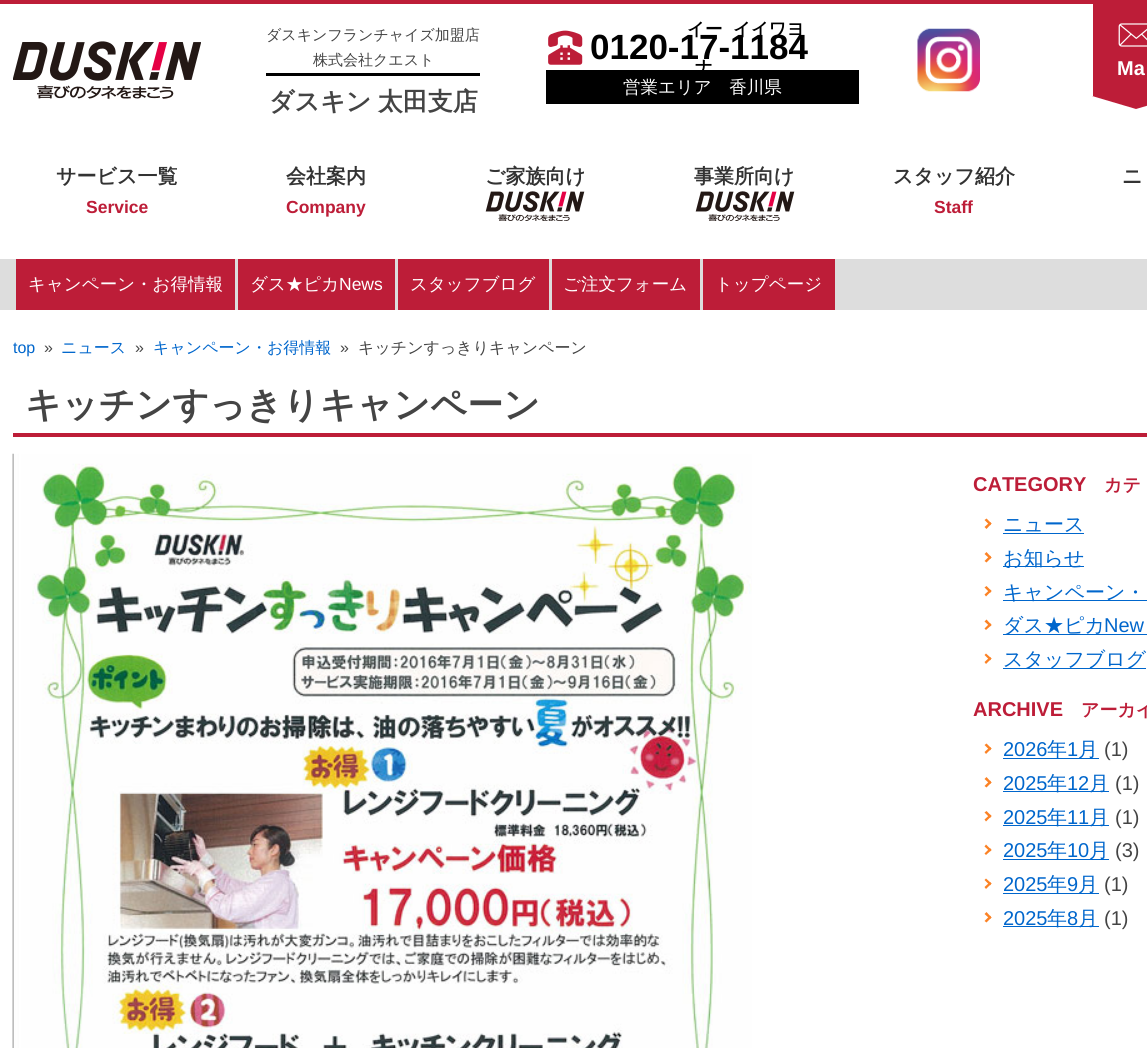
import math
import cairo

surface = cairo.ImageSurface(cairo.FORMAT_RGB24, 1147, 1048)
ctx = cairo.Context(surface)
options = cairo.FontOptions()
options.set_hint_metrics(cairo.HINT_METRICS_OFF)
options.set_hint_style(cairo.HINT_STYLE_NONE)
ctx.set_font_options(options)
ctx.set_miter_limit(4)


def spaced_text(x, y, s, letter, word):
    ctx.move_to(x, y)
    for ch in s:
        ctx.show_text(ch)
        ctx.rel_move_to(letter + word * (ch == ' '), 0)


def picture(path, x, y, w, h):
    ctx.save()
    ctx.set_source_surface(cairo.ImageSurface.create_from_png(path), x, y)
    ctx.rectangle(x, y, w, h)
    ctx.fill()
    ctx.restore()


ctx.set_source_rgb(1, 1, 1)
ctx.paint()
ctx.set_source_rgb(0.741, 0.114, 0.22)
ctx.rectangle(0, 0, 1147, 4)
ctx.fill()
picture("img1.png", 13, 41, 188, 58)
ctx.set_source_rgb(0, 0, 0)
ctx.rectangle(266, 73, 214, 3)
ctx.fill()
ctx.select_font_face("WenQuanYi Zen Hei Medium")
ctx.set_font_size(15)
ctx.set_source_rgb(0.267, 0.267, 0.267)
ctx.move_to(266, 40)
ctx.show_text("ダスキンフランチャイズ加盟店")
ctx.move_to(313, 65)
ctx.show_text("株式会社クエスト")
ctx.select_font_face("WenQuanYi Zen Hei", cairo.FONT_SLANT_NORMAL, cairo.FONT_WEIGHT_BOLD)
ctx.set_font_size(25)
spaced_text(269, 110, "ダスキン 太田支店", 0, -1)
picture("img2.png", 548, 30, 35, 35)
ctx.set_font_size(17.5)
ctx.set_source_rgb(0, 0, 0)
ctx.move_to(687, 35)
ctx.show_text("イー")
ctx.rectangle(546, 70, 313, 34)
ctx.fill()
ctx.move_to(695, 73)
ctx.show_text("ナ")
ctx.move_to(733, 35)
ctx.show_text("イイワヨ")
ctx.select_font_face("Liberation Sans", cairo.FONT_SLANT_NORMAL, cairo.FONT_WEIGHT_BOLD)
ctx.set_font_size(35)
ctx.move_to(590, 59)
ctx.show_text("0120-17-1184")
ctx.select_font_face("WenQuanYi Zen Hei Medium")
ctx.set_font_size(17.5)
ctx.set_source_rgb(1, 1, 1)
ctx.move_to(623, 93)
ctx.show_text("営業エリア　香川県")
picture("img3.png", 917, 28, 63, 64)
ctx.set_source_rgb(0.741, 0.114, 0.22)
ctx.rectangle(1093, 4, 54, 92)
ctx.fill()
picture("img4.png", 1118, 23, 29, 24)
ctx.select_font_face("Liberation Sans", cairo.FONT_SLANT_NORMAL, cairo.FONT_WEIGHT_BOLD)
ctx.set_font_size(20)
ctx.set_source_rgb(1, 1, 1)
ctx.move_to(1117, 75)
ctx.show_text("Ma")
ctx.set_source_rgb(0.741, 0.114, 0.22)
ctx.new_path()
ctx.move_to(1092, 96)
ctx.line_to(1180, 96)
ctx.line_to(1136, 109)
ctx.close_path()
ctx.fill()
ctx.select_font_face("WenQuanYi Zen Hei", cairo.FONT_SLANT_NORMAL, cairo.FONT_WEIGHT_BOLD)
ctx.set_source_rgb(0.2, 0.2, 0.2)
ctx.move_to(56, 183)
ctx.show_text("サービス一覧")
ctx.select_font_face("Liberation Sans", cairo.FONT_SLANT_NORMAL, cairo.FONT_WEIGHT_BOLD)
ctx.set_font_size(17.5)
ctx.set_source_rgb(0.741, 0.114, 0.22)
ctx.move_to(86, 213)
ctx.show_text("Service")
ctx.select_font_face("WenQuanYi Zen Hei", cairo.FONT_SLANT_NORMAL, cairo.FONT_WEIGHT_BOLD)
ctx.set_font_size(20)
ctx.set_source_rgb(0.2, 0.2, 0.2)
ctx.move_to(286, 183)
ctx.show_text("会社案内")
ctx.select_font_face("Liberation Sans", cairo.FONT_SLANT_NORMAL, cairo.FONT_WEIGHT_BOLD)
ctx.set_font_size(17.5)
ctx.set_source_rgb(0.741, 0.114, 0.22)
ctx.move_to(286, 213)
ctx.show_text("Company")
ctx.select_font_face("WenQuanYi Zen Hei", cairo.FONT_SLANT_NORMAL, cairo.FONT_WEIGHT_BOLD)
ctx.set_font_size(20)
ctx.set_source_rgb(0.2, 0.2, 0.2)
ctx.move_to(485, 183)
ctx.show_text("ご家族向け")
picture("img5.png", 485, 191, 100, 30)
ctx.move_to(694, 183)
ctx.show_text("事業所向け")
picture("img5.png", 695, 191, 100, 30)
ctx.move_to(893, 183)
ctx.show_text("スタッフ紹介")
ctx.select_font_face("Liberation Sans", cairo.FONT_SLANT_NORMAL, cairo.FONT_WEIGHT_BOLD)
ctx.set_font_size(17.5)
ctx.set_source_rgb(0.741, 0.114, 0.22)
ctx.move_to(934, 213)
ctx.show_text("Staff")
ctx.select_font_face("WenQuanYi Zen Hei", cairo.FONT_SLANT_NORMAL, cairo.FONT_WEIGHT_BOLD)
ctx.set_font_size(20)
ctx.set_source_rgb(0.2, 0.2, 0.2)
ctx.move_to(1122, 183)
ctx.show_text("ニ")
ctx.set_source_rgb(0.867, 0.867, 0.867)
ctx.rectangle(0, 259, 1147, 51)
ctx.fill()
ctx.set_source_rgb(0.741, 0.114, 0.22)
ctx.rectangle(16, 259, 219, 51)
ctx.fill()
ctx.select_font_face("WenQuanYi Zen Hei Medium")
ctx.set_font_size(17.5)
ctx.set_source_rgb(1, 1, 1)
ctx.move_to(28, 290)
ctx.show_text("キャンペーン・お得情報")
ctx.set_source_rgb(0.741, 0.114, 0.22)
ctx.rectangle(238, 259, 157, 51)
ctx.fill()
ctx.set_source_rgb(1, 1, 1)
ctx.move_to(250, 290)
ctx.show_text("ダス★ピカ")
ctx.select_font_face("Liberation Sans")
ctx.move_to(339, 290)
ctx.show_text("News")
ctx.set_source_rgb(0.741, 0.114, 0.22)
ctx.rectangle(398, 259, 151, 51)
ctx.fill()
ctx.select_font_face("WenQuanYi Zen Hei Medium")
ctx.set_source_rgb(1, 1, 1)
ctx.move_to(410, 290)
ctx.show_text("スタッフブログ")
ctx.set_source_rgb(0.741, 0.114, 0.22)
ctx.rectangle(552, 259, 148, 51)
ctx.fill()
ctx.set_source_rgb(1, 1, 1)
ctx.move_to(563, 290)
ctx.show_text("ご注文フォーム")
ctx.set_source_rgb(0.741, 0.114, 0.22)
ctx.rectangle(703, 259, 132, 51)
ctx.fill()
ctx.set_source_rgb(1, 1, 1)
ctx.move_to(715, 290)
ctx.show_text("トップページ")
ctx.select_font_face("Liberation Sans")
ctx.set_font_size(16)
ctx.set_source_rgb(0, 0.4, 0.8)
ctx.move_to(13, 353)
ctx.show_text("top")
ctx.set_source_rgb(0.267, 0.267, 0.267)
ctx.move_to(44, 353)
ctx.show_text("»")
ctx.select_font_face("WenQuanYi Zen Hei Medium")
ctx.set_source_rgb(0, 0.4, 0.8)
ctx.move_to(61, 353)
ctx.show_text("ニュース")
ctx.select_font_face("Liberation Sans")
ctx.set_source_rgb(0.267, 0.267, 0.267)
ctx.move_to(135, 353)
ctx.show_text("»")
ctx.select_font_face("WenQuanYi Zen Hei Medium")
ctx.set_source_rgb(0, 0.4, 0.8)
ctx.move_to(153, 353)
ctx.show_text("キャンペーン・お得情報")
ctx.select_font_face("Liberation Sans")
ctx.set_source_rgb(0.267, 0.267, 0.267)
ctx.move_to(340, 353)
ctx.show_text("»")
ctx.select_font_face("WenQuanYi Zen Hei Medium")
ctx.move_to(358, 353)
ctx.show_text("キッチンすっきりキャンペーン")
ctx.set_source_rgb(0.741, 0.114, 0.22)
ctx.rectangle(13, 433, 1134, 4)
ctx.fill()
ctx.select_font_face("WenQuanYi Zen Hei", cairo.FONT_SLANT_NORMAL, cairo.FONT_WEIGHT_BOLD)
ctx.set_font_size(36)
ctx.set_source_rgb(0.267, 0.267, 0.267)
ctx.move_to(25, 417)
ctx.show_text("キッチンすっきりキャンペーン")
picture("img6.png", 12, 453, 740, 595)
ctx.select_font_face("Liberation Sans", cairo.FONT_SLANT_NORMAL, cairo.FONT_WEIGHT_BOLD)
ctx.set_font_size(20)
ctx.set_source_rgb(0.741, 0.114, 0.22)
ctx.move_to(973, 491)
ctx.show_text("CATEGORY")
ctx.select_font_face("WenQuanYi Zen Hei", cairo.FONT_SLANT_NORMAL, cairo.FONT_WEIGHT_BOLD)
ctx.set_font_size(18)
ctx.move_to(1104, 491)
ctx.show_text("カテ")
ctx.set_source_rgb(0.984, 0.51, 0.145)
ctx.new_path()
ctx.move_to(984.5, 520)
ctx.line_to(986.5, 518.5)
ctx.line_to(991.5, 523.5)
ctx.line_to(990, 525.5)
ctx.close_path()
ctx.fill()
ctx.new_path()
ctx.move_to(984.5, 527)
ctx.line_to(990, 522)
ctx.line_to(991.5, 523.5)
ctx.line_to(986.5, 529)
ctx.close_path()
ctx.fill()
ctx.select_font_face("WenQuanYi Zen Hei Medium")
ctx.set_font_size(20)
ctx.set_source_rgb(0, 0.4, 0.8)
ctx.move_to(1003, 531)
ctx.show_text("ニュース")
ctx.rectangle(1003, 533, 81, 1)
ctx.fill()
ctx.set_source_rgb(0.984, 0.51, 0.145)
ctx.new_path()
ctx.move_to(984.5, 554)
ctx.line_to(986.5, 552)
ctx.line_to(991.5, 557.5)
ctx.line_to(990, 559)
ctx.close_path()
ctx.fill()
ctx.new_path()
ctx.move_to(984.5, 561)
ctx.line_to(990, 555.5)
ctx.line_to(991.5, 557.5)
ctx.line_to(986.5, 562.5)
ctx.close_path()
ctx.fill()
ctx.set_source_rgb(0, 0.4, 0.8)
ctx.rectangle(1003, 566, 81, 1)
ctx.fill()
ctx.move_to(1003, 565)
ctx.show_text("お知らせ")
ctx.set_source_rgb(0.984, 0.51, 0.145)
ctx.new_path()
ctx.move_to(984.5, 587.5)
ctx.line_to(986.5, 586)
ctx.line_to(991.5, 591)
ctx.line_to(990, 593)
ctx.close_path()
ctx.fill()
ctx.new_path()
ctx.move_to(984.5, 594.5)
ctx.line_to(990, 589.5)
ctx.line_to(991.5, 591)
ctx.line_to(986, 596.5)
ctx.close_path()
ctx.fill()
ctx.set_source_rgb(0, 0.4, 0.8)
ctx.rectangle(1003, 600, 144, 1)
ctx.fill()
ctx.move_to(1003, 599)
ctx.show_text("キャンペーン・")
ctx.set_source_rgb(0.984, 0.51, 0.145)
ctx.new_path()
ctx.move_to(984.5, 621.5)
ctx.line_to(986.5, 619.5)
ctx.line_to(991.5, 625)
ctx.line_to(990, 626.5)
ctx.close_path()
ctx.fill()
ctx.new_path()
ctx.move_to(984.5, 628.5)
ctx.line_to(990, 623)
ctx.line_to(991.5, 625)
ctx.line_to(986, 630)
ctx.close_path()
ctx.fill()
ctx.set_source_rgb(0, 0.4, 0.8)
ctx.rectangle(1003, 634, 144, 1)
ctx.fill()
ctx.move_to(1003, 632)
ctx.show_text("ダス★ピカ")
ctx.select_font_face("Liberation Sans")
ctx.move_to(1104, 632)
ctx.show_text("New")
ctx.set_source_rgb(0.984, 0.51, 0.145)
ctx.new_path()
ctx.move_to(984.5, 655)
ctx.line_to(986, 653.5)
ctx.line_to(991.5, 658.5)
ctx.line_to(990, 660.5)
ctx.close_path()
ctx.fill()
ctx.new_path()
ctx.move_to(984.5, 662)
ctx.line_to(990, 657)
ctx.line_to(991.5, 658.5)
ctx.line_to(986, 664)
ctx.close_path()
ctx.fill()
ctx.set_source_rgb(0, 0.4, 0.8)
ctx.rectangle(1003, 668, 143, 1)
ctx.fill()
ctx.select_font_face("WenQuanYi Zen Hei Medium")
ctx.move_to(1003, 666)
ctx.show_text("スタッフブログ")
ctx.select_font_face("Liberation Sans", cairo.FONT_SLANT_NORMAL, cairo.FONT_WEIGHT_BOLD)
ctx.set_source_rgb(0.741, 0.114, 0.22)
ctx.move_to(973, 716)
ctx.show_text("ARCHIVE")
ctx.select_font_face("WenQuanYi Zen Hei", cairo.FONT_SLANT_NORMAL, cairo.FONT_WEIGHT_BOLD)
ctx.set_font_size(18)
ctx.move_to(1081, 716)
ctx.show_text("アーカイ")
ctx.set_source_rgb(0.984, 0.51, 0.145)
ctx.new_path()
ctx.move_to(984.5, 745)
ctx.line_to(986.5, 743.5)
ctx.line_to(991.5, 748.5)
ctx.line_to(990, 750.5)
ctx.close_path()
ctx.fill()
ctx.new_path()
ctx.move_to(984.5, 752)
ctx.line_to(990, 747)
ctx.line_to(991.5, 748.5)
ctx.line_to(986, 754)
ctx.close_path()
ctx.fill()
ctx.select_font_face("Liberation Sans")
ctx.set_font_size(20)
ctx.set_source_rgb(0, 0.4, 0.8)
ctx.move_to(1003, 756)
ctx.show_text("2026")
ctx.rectangle(1003, 758, 96, 1)
ctx.fill()
ctx.select_font_face("WenQuanYi Zen Hei Medium")
ctx.move_to(1047, 756)
ctx.show_text("年")
ctx.select_font_face("Liberation Sans")
ctx.move_to(1067, 756)
ctx.show_text("1")
ctx.select_font_face("WenQuanYi Zen Hei Medium")
ctx.move_to(1078, 756)
ctx.show_text("月")
ctx.select_font_face("Liberation Sans")
ctx.set_source_rgb(0.267, 0.267, 0.267)
ctx.move_to(1104, 756)
ctx.show_text("(1)")
ctx.set_source_rgb(0.984, 0.51, 0.145)
ctx.new_path()
ctx.move_to(984.5, 779)
ctx.line_to(986.5, 777)
ctx.line_to(991.5, 782.5)
ctx.line_to(990, 784)
ctx.close_path()
ctx.fill()
ctx.new_path()
ctx.move_to(984.5, 786)
ctx.line_to(990, 780.5)
ctx.line_to(991.5, 782.5)
ctx.line_to(986.5, 787.5)
ctx.close_path()
ctx.fill()
ctx.set_source_rgb(0, 0.4, 0.8)
ctx.move_to(1003, 790)
ctx.show_text("2025")
ctx.rectangle(1003, 791, 106, 1)
ctx.fill()
ctx.select_font_face("WenQuanYi Zen Hei Medium")
ctx.move_to(1047, 790)
ctx.show_text("年")
ctx.select_font_face("Liberation Sans")
ctx.move_to(1067, 790)
ctx.show_text("12")
ctx.select_font_face("WenQuanYi Zen Hei Medium")
ctx.move_to(1089, 790)
ctx.show_text("月")
ctx.select_font_face("Liberation Sans")
ctx.set_source_rgb(0.267, 0.267, 0.267)
ctx.move_to(1115, 790)
ctx.show_text("(1)")
ctx.set_source_rgb(0.984, 0.51, 0.145)
ctx.new_path()
ctx.move_to(984.5, 812.5)
ctx.line_to(986.5, 811)
ctx.line_to(991.5, 816)
ctx.line_to(990, 818)
ctx.close_path()
ctx.fill()
ctx.new_path()
ctx.move_to(984.5, 819.5)
ctx.line_to(990, 814.5)
ctx.line_to(991.5, 816)
ctx.line_to(986, 821.5)
ctx.close_path()
ctx.fill()
ctx.set_source_rgb(0, 0.4, 0.8)
ctx.move_to(1003, 824)
ctx.show_text("2025")
ctx.rectangle(1003, 825, 106, 1)
ctx.fill()
ctx.select_font_face("WenQuanYi Zen Hei Medium")
ctx.move_to(1047, 824)
ctx.show_text("年")
ctx.select_font_face("Liberation Sans")
ctx.move_to(1067, 824)
ctx.show_text("11")
ctx.select_font_face("WenQuanYi Zen Hei Medium")
ctx.move_to(1089, 824)
ctx.show_text("月")
ctx.select_font_face("Liberation Sans")
ctx.set_source_rgb(0.267, 0.267, 0.267)
ctx.move_to(1115, 824)
ctx.show_text("(1)")
ctx.set_source_rgb(0.984, 0.51, 0.145)
ctx.new_path()
ctx.move_to(984.5, 846.5)
ctx.line_to(986, 844.5)
ctx.line_to(991.5, 850)
ctx.line_to(990, 851.5)
ctx.close_path()
ctx.fill()
ctx.new_path()
ctx.move_to(984.5, 853.5)
ctx.line_to(990, 848)
ctx.line_to(991.5, 850)
ctx.line_to(986, 855)
ctx.close_path()
ctx.fill()
ctx.set_source_rgb(0, 0.4, 0.8)
ctx.move_to(1003, 857)
ctx.show_text("2025")
ctx.rectangle(1003, 859, 106, 1)
ctx.fill()
ctx.select_font_face("WenQuanYi Zen Hei Medium")
ctx.move_to(1047, 857)
ctx.show_text("年")
ctx.select_font_face("Liberation Sans")
ctx.move_to(1067, 857)
ctx.show_text("10")
ctx.select_font_face("WenQuanYi Zen Hei Medium")
ctx.move_to(1089, 857)
ctx.show_text("月")
ctx.select_font_face("Liberation Sans")
ctx.set_source_rgb(0.267, 0.267, 0.267)
ctx.move_to(1115, 857)
ctx.show_text("(3)")
ctx.set_source_rgb(0.984, 0.51, 0.145)
ctx.new_path()
ctx.move_to(984.5, 880)
ctx.line_to(986, 878.5)
ctx.line_to(991.5, 883.5)
ctx.line_to(990, 885.5)
ctx.close_path()
ctx.fill()
ctx.new_path()
ctx.move_to(984.5, 887)
ctx.line_to(990, 882)
ctx.line_to(991.5, 883.5)
ctx.line_to(986, 889)
ctx.close_path()
ctx.fill()
ctx.set_source_rgb(0, 0.4, 0.8)
ctx.move_to(1003, 891)
ctx.show_text("2025")
ctx.rectangle(1003, 893, 96, 1)
ctx.fill()
ctx.select_font_face("WenQuanYi Zen Hei Medium")
ctx.move_to(1047, 891)
ctx.show_text("年")
ctx.select_font_face("Liberation Sans")
ctx.move_to(1067, 891)
ctx.show_text("9")
ctx.select_font_face("WenQuanYi Zen Hei Medium")
ctx.move_to(1078, 891)
ctx.show_text("月")
ctx.select_font_face("Liberation Sans")
ctx.set_source_rgb(0.267, 0.267, 0.267)
ctx.move_to(1104, 891)
ctx.show_text("(1)")
ctx.set_source_rgb(0.984, 0.51, 0.145)
ctx.new_path()
ctx.move_to(984.5, 914)
ctx.line_to(986.5, 912)
ctx.line_to(991.5, 917.5)
ctx.line_to(990, 919)
ctx.close_path()
ctx.fill()
ctx.new_path()
ctx.move_to(984.5, 921)
ctx.line_to(990, 915.5)
ctx.line_to(991.5, 917.5)
ctx.line_to(986.5, 922.5)
ctx.close_path()
ctx.fill()
ctx.set_source_rgb(0, 0.4, 0.8)
ctx.move_to(1003, 925)
ctx.show_text("2025")
ctx.rectangle(1003, 926, 96, 1)
ctx.fill()
ctx.select_font_face("WenQuanYi Zen Hei Medium")
ctx.move_to(1047, 925)
ctx.show_text("年")
ctx.select_font_face("Liberation Sans")
ctx.move_to(1067, 925)
ctx.show_text("8")
ctx.select_font_face("WenQuanYi Zen Hei Medium")
ctx.move_to(1078, 925)
ctx.show_text("月")
ctx.select_font_face("Liberation Sans")
ctx.set_source_rgb(0.267, 0.267, 0.267)
ctx.move_to(1104, 925)
ctx.show_text("(1)")
surface.write_to_png("page.png")
